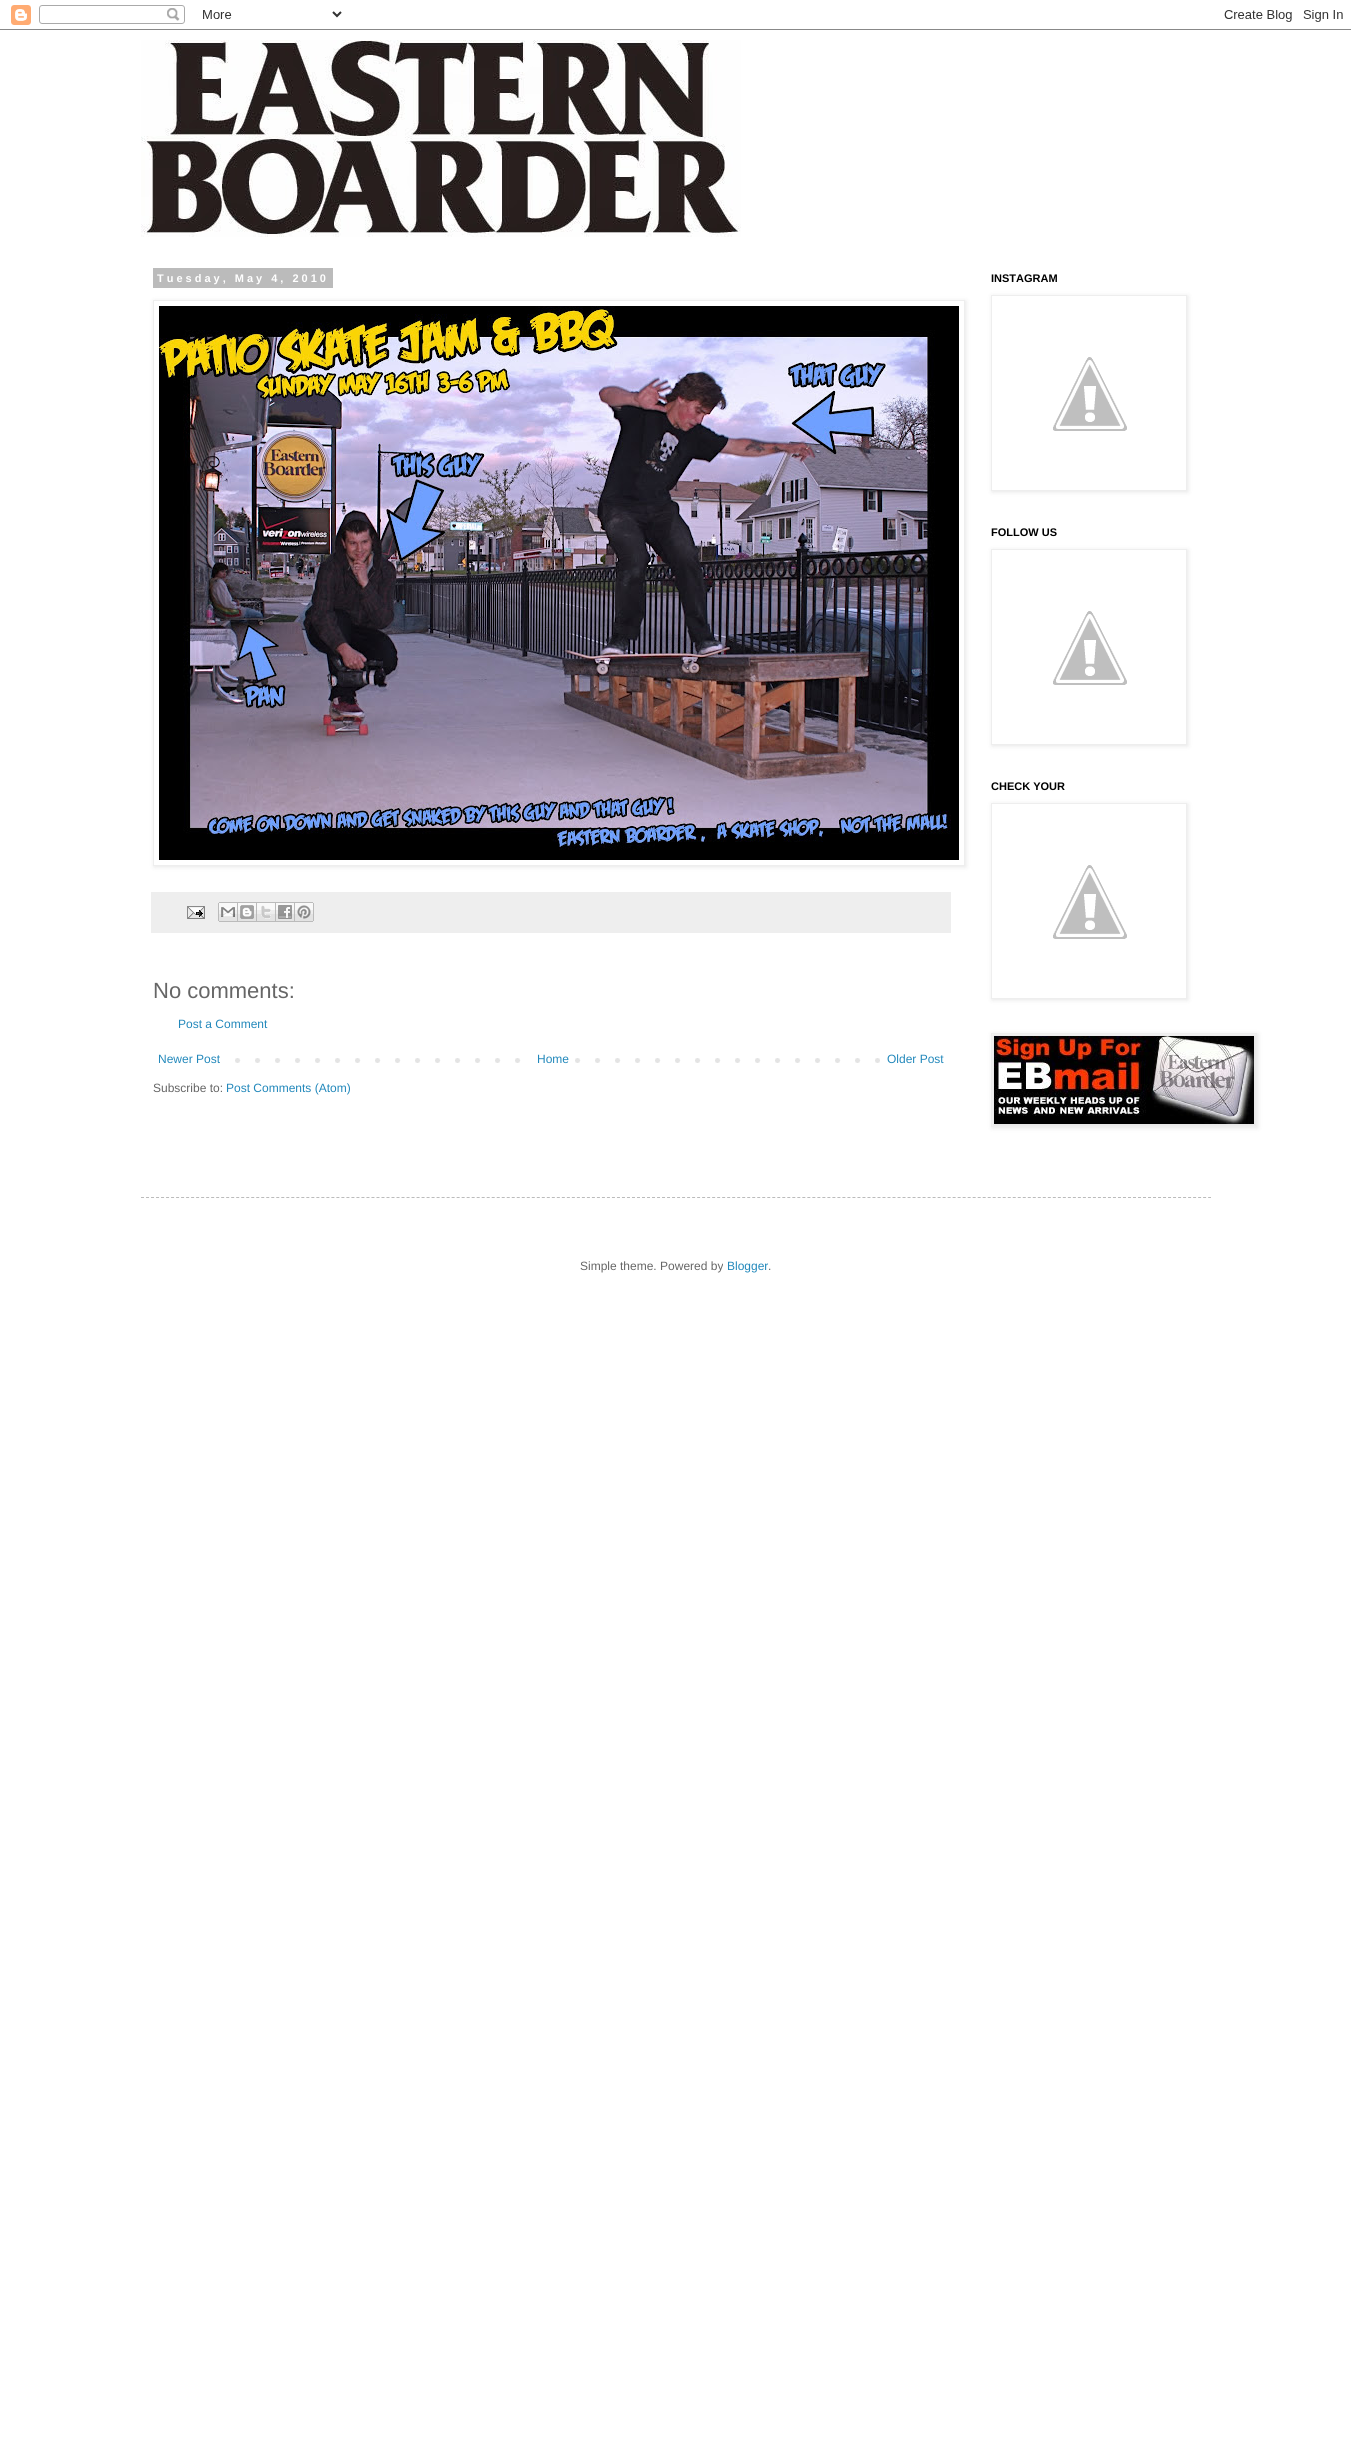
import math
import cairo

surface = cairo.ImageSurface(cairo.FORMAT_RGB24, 1351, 2439)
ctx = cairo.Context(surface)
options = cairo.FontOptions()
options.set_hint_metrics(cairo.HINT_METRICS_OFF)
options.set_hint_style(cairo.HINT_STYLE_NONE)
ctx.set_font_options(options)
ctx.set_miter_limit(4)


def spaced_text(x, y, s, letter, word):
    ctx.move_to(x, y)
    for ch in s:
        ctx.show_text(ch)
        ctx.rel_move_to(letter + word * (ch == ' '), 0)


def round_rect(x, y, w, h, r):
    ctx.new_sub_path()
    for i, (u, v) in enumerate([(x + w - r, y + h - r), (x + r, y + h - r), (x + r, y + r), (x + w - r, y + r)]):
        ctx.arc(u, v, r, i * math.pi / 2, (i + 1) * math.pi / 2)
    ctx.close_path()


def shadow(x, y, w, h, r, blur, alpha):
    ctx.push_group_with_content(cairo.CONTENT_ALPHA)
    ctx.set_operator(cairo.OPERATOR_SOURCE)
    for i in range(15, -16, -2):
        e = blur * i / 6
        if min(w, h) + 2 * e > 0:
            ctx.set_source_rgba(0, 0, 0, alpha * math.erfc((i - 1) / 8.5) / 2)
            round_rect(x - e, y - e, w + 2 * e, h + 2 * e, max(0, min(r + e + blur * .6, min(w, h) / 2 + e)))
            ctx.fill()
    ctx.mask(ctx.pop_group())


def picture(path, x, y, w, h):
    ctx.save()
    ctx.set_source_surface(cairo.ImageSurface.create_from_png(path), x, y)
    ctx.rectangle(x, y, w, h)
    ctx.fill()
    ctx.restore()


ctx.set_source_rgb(1, 1, 1)
ctx.paint()
picture("img1.png", 0, 5, 1351, 25)
picture("img2.png", 141, 40, 600, 197)
ctx.set_source_rgb(0.733, 0.733, 0.733)
ctx.rectangle(153, 268, 180, 20)
ctx.fill()
ctx.select_font_face("Liberation Sans", cairo.FONT_SLANT_NORMAL, cairo.FONT_WEIGHT_BOLD)
ctx.set_font_size(11)
ctx.set_source_rgb(1, 1, 1)
spaced_text(157, 282, "Tuesday, May 4, 2010", 3, 0)
ctx.save()
ctx.set_fill_rule(cairo.FILL_RULE_EVEN_ODD)
ctx.new_path()
ctx.move_to(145, 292)
ctx.line_to(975, 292)
ctx.line_to(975, 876)
ctx.line_to(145, 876)
ctx.close_path()
ctx.move_to(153, 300)
ctx.line_to(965, 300)
ctx.line_to(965, 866)
ctx.line_to(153, 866)
ctx.close_path()
ctx.clip()
ctx.set_source_rgb(0, 0, 0)
shadow(154, 301, 812, 566, 0, 2.5, 0.1)
ctx.restore()
ctx.rectangle(153.5, 300.5, 811, 565)
ctx.set_source_rgb(0.933, 0.933, 0.933)
ctx.set_line_width(1)
ctx.stroke()
picture("img3.png", 159, 306, 800, 554)
ctx.rectangle(151, 892, 800, 41)
ctx.fill()
picture("img4.png", 187, 906, 18, 13)
picture("img5.png", 218, 902, 20, 20)
picture("img6.png", 238, 902, 19, 20)
picture("img7.png", 257, 902, 19, 20)
picture("img8.png", 276, 902, 19, 20)
picture("img9.png", 295, 902, 19, 20)
ctx.select_font_face("Liberation Sans")
ctx.set_font_size(22)
ctx.set_source_rgb(0.4, 0.4, 0.4)
ctx.move_to(153, 998)
ctx.show_text("No comments:")
ctx.set_font_size(12)
ctx.set_source_rgb(0.133, 0.533, 0.733)
ctx.move_to(178, 1028)
ctx.show_text("Post a Comment")
picture("img10.png", 235, 1058, 645, 5)
ctx.move_to(158, 1063)
ctx.show_text("Newer Post")
ctx.set_source_rgb(1, 1, 1)
ctx.rectangle(535, 1058, 26, 5)
ctx.fill()
ctx.set_source_rgb(0.133, 0.533, 0.733)
ctx.move_to(537, 1063)
ctx.show_text("Home")
ctx.move_to(887, 1063)
ctx.show_text("Older Post")
ctx.set_source_rgb(0.4, 0.4, 0.4)
ctx.move_to(153, 1092)
ctx.show_text("Subscribe to:")
ctx.set_source_rgb(0.133, 0.533, 0.733)
ctx.move_to(226, 1092)
ctx.show_text("Post Comments (Atom)")
ctx.select_font_face("Liberation Sans", cairo.FONT_SLANT_NORMAL, cairo.FONT_WEIGHT_BOLD)
ctx.set_font_size(11)
ctx.set_source_rgb(0, 0, 0)
ctx.move_to(991, 282)
ctx.show_text("INSTAGRAM")
ctx.save()
ctx.set_fill_rule(cairo.FILL_RULE_EVEN_ODD)
ctx.new_path()
ctx.move_to(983, 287)
ctx.line_to(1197, 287)
ctx.line_to(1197, 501)
ctx.line_to(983, 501)
ctx.close_path()
ctx.move_to(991, 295)
ctx.line_to(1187, 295)
ctx.line_to(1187, 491)
ctx.line_to(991, 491)
ctx.close_path()
ctx.clip()
ctx.set_source_rgb(0, 0, 0)
shadow(992, 296, 196, 196, 0, 2.5, 0.1)
ctx.restore()
ctx.rectangle(991.5, 295.5, 195, 195)
ctx.set_source_rgb(0.933, 0.933, 0.933)
ctx.stroke()
picture("img11.png", 1053, 357, 74, 74)
ctx.set_source_rgb(0, 0, 0)
ctx.move_to(991, 536)
ctx.show_text("FOLLOW US")
ctx.save()
ctx.set_fill_rule(cairo.FILL_RULE_EVEN_ODD)
ctx.new_path()
ctx.move_to(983, 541)
ctx.line_to(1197, 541)
ctx.line_to(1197, 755)
ctx.line_to(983, 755)
ctx.close_path()
ctx.move_to(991, 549)
ctx.line_to(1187, 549)
ctx.line_to(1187, 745)
ctx.line_to(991, 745)
ctx.close_path()
ctx.clip()
ctx.set_source_rgb(0, 0, 0)
shadow(992, 550, 196, 196, 0, 2.5, 0.1)
ctx.restore()
ctx.rectangle(991.5, 549.5, 195, 195)
ctx.set_source_rgb(0.933, 0.933, 0.933)
ctx.stroke()
picture("img11.png", 1053, 611, 74, 74)
ctx.set_source_rgb(0, 0, 0)
ctx.move_to(991, 790)
ctx.show_text("CHECK YOUR")
ctx.save()
ctx.set_fill_rule(cairo.FILL_RULE_EVEN_ODD)
ctx.new_path()
ctx.move_to(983, 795)
ctx.line_to(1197, 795)
ctx.line_to(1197, 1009)
ctx.line_to(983, 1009)
ctx.close_path()
ctx.move_to(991, 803)
ctx.line_to(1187, 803)
ctx.line_to(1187, 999)
ctx.line_to(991, 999)
ctx.close_path()
ctx.clip()
ctx.set_source_rgb(0, 0, 0)
shadow(992, 804, 196, 196, 0, 2.5, 0.1)
ctx.restore()
ctx.rectangle(991.5, 803.5, 195, 195)
ctx.set_source_rgb(0.933, 0.933, 0.933)
ctx.stroke()
picture("img11.png", 1053, 865, 74, 74)
ctx.set_source_rgb(0, 0, 0)
shadow(992, 1034, 266, 94, 0, 2.5, 0.1)
ctx.rectangle(991.5, 1033.5, 265, 93)
ctx.set_source_rgb(0.933, 0.933, 0.933)
ctx.stroke()
picture("img12.png", 994, 1036, 260, 88)
ctx.new_path()
ctx.move_to(141, 1197.5)
ctx.line_to(1211, 1197.5)
ctx.set_source_rgb(0.733, 0.733, 0.733)
ctx.set_dash([3, 2.01])
ctx.stroke()
ctx.select_font_face("Liberation Sans")
ctx.set_font_size(12)
ctx.set_source_rgb(0.4, 0.4, 0.4)
ctx.move_to(580, 1270)
ctx.show_text("Simple theme. Powered by")
ctx.set_source_rgb(0.133, 0.533, 0.733)
ctx.move_to(727, 1270)
ctx.show_text("Blogger")
ctx.set_source_rgb(0.4, 0.4, 0.4)
ctx.move_to(768, 1270)
ctx.show_text(".")
surface.write_to_png("page.png")
